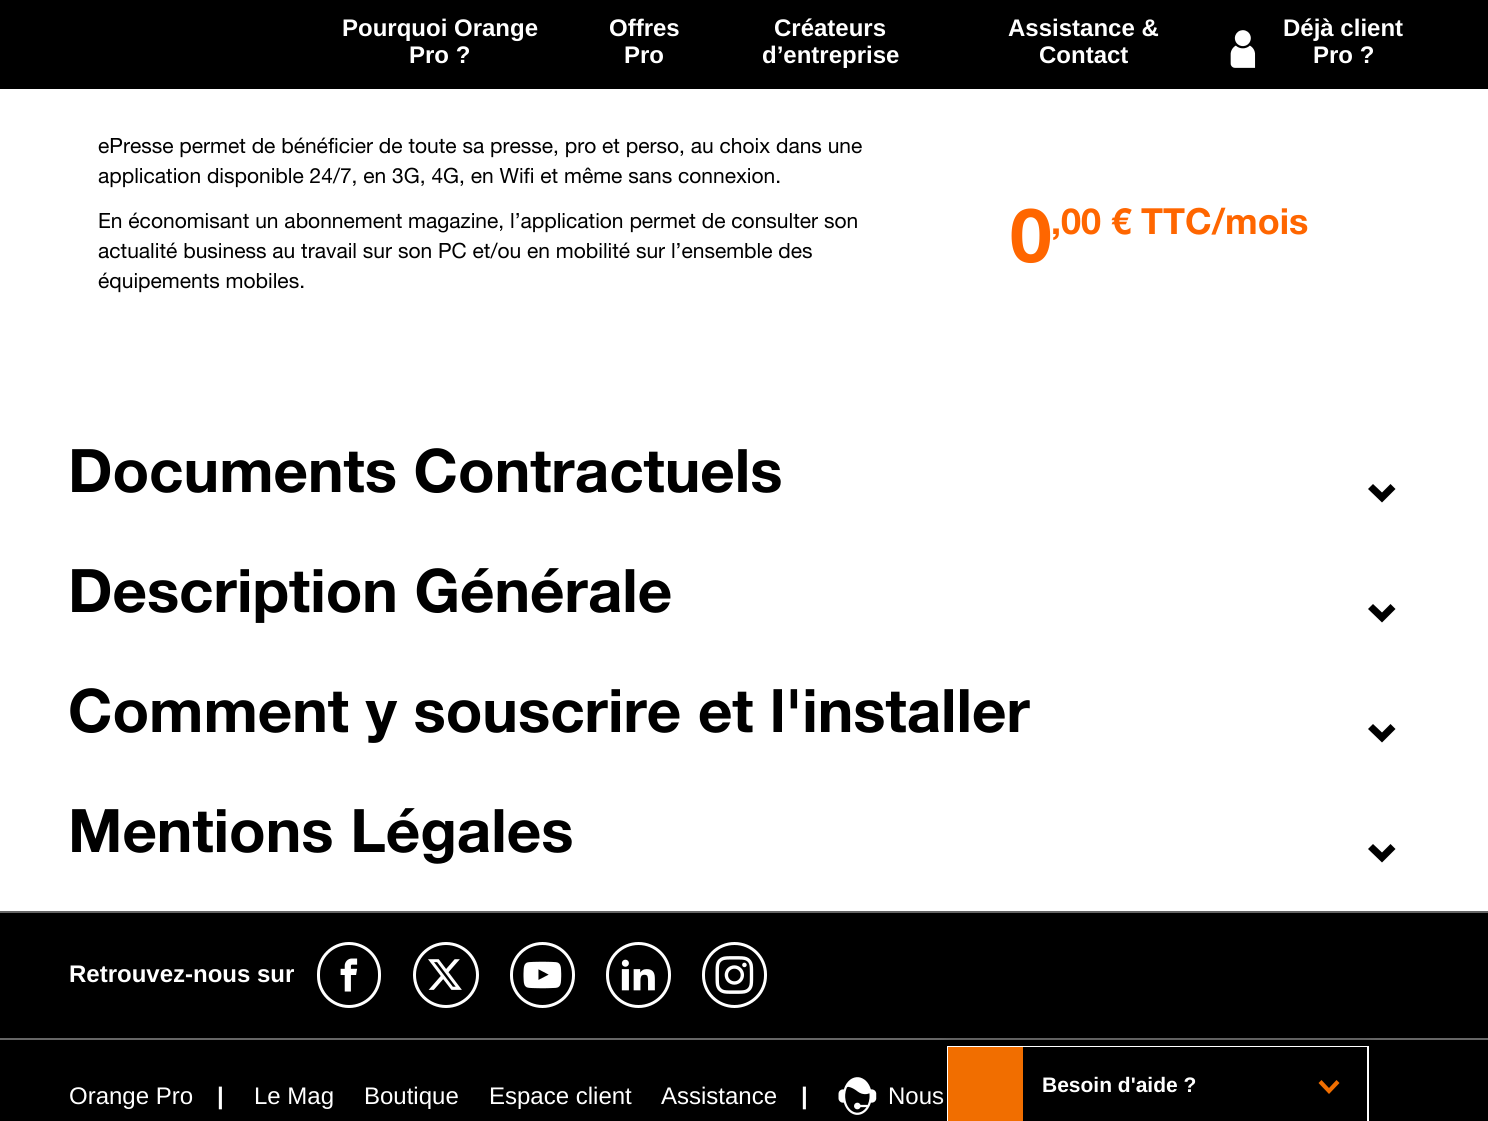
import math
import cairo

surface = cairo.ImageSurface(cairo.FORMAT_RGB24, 1488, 1121)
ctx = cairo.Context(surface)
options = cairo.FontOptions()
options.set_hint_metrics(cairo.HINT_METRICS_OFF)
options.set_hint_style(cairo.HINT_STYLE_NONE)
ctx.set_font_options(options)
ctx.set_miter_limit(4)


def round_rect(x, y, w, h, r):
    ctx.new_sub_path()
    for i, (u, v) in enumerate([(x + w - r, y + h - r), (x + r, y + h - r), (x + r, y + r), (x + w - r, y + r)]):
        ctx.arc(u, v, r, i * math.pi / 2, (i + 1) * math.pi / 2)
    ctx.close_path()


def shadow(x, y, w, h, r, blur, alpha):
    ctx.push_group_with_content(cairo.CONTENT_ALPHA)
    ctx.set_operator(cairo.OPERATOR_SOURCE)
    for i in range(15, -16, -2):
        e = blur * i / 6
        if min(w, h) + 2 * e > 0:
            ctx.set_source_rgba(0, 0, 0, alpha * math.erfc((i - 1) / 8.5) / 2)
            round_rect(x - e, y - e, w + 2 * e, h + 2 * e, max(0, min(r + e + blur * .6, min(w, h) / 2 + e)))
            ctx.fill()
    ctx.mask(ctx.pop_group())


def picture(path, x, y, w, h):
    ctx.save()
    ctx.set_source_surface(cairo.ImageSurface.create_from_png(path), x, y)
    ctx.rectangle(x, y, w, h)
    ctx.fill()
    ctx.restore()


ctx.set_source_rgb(1, 1, 1)
ctx.paint()
ctx.set_source_rgb(0, 0, 0)
ctx.rectangle(0, 0, 1488, 89)
ctx.fill()
ctx.select_font_face("Liberation Sans", cairo.FONT_SLANT_NORMAL, cairo.FONT_WEIGHT_BOLD)
ctx.set_font_size(24)
ctx.set_source_rgb(1, 1, 1)
ctx.move_to(342, 36)
ctx.show_text("Pourquoi Orange")
ctx.move_to(409, 63)
ctx.show_text("Pro ?")
ctx.move_to(609, 36)
ctx.show_text("Offres")
ctx.move_to(624, 63)
ctx.show_text("Pro")
ctx.move_to(774, 36)
ctx.show_text("Créateurs")
ctx.move_to(762, 63)
ctx.show_text("d’entreprise")
ctx.move_to(1008, 36)
ctx.show_text("Assistance &")
ctx.move_to(1039, 63)
ctx.show_text("Contact")
picture("img1.png", 1230, 30, 26, 38)
ctx.move_to(1283, 36)
ctx.show_text("Déjà client")
ctx.move_to(1313, 63)
ctx.show_text("Pro ?")
ctx.select_font_face("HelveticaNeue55")
ctx.set_font_size(21)
ctx.set_source_rgb(0, 0, 0)
ctx.move_to(98, 153)
ctx.show_text("ePresse permet de bénéficier de toute sa presse, pro et perso, au choix dans une")
ctx.move_to(98, 183)
ctx.show_text("application disponible 24/7, en 3G, 4G, en Wifi et même sans connexion.")
ctx.move_to(98, 228)
ctx.show_text("En économisant un abonnement magazine, l’application permet de consulter son")
ctx.move_to(98, 258)
ctx.show_text("actualité business au travail sur son PC et/ou en mobilité sur l’ensemble des")
ctx.move_to(98, 288)
ctx.show_text("équipements mobiles.")
ctx.select_font_face("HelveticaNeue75", cairo.FONT_SLANT_NORMAL, cairo.FONT_WEIGHT_BOLD)
ctx.set_font_size(75)
ctx.set_source_rgb(1, 0.4, 0)
ctx.move_to(1010, 262)
ctx.show_text("0")
ctx.set_font_size(36)
ctx.move_to(1051, 234)
ctx.show_text(",00 € TTC/mois")
ctx.set_font_size(60)
ctx.set_source_rgb(0, 0, 0)
ctx.move_to(68, 492)
ctx.show_text("Documents Contractuels")
ctx.new_path()
ctx.move_to(1395.5, 489)
ctx.line_to(1382, 502.5)
ctx.line_to(1368, 489)
ctx.line_to(1373, 484)
ctx.line_to(1382, 492.5)
ctx.line_to(1390.5, 484)
ctx.close_path()
ctx.fill()
ctx.move_to(68, 612)
ctx.show_text("Description Générale")
ctx.new_path()
ctx.move_to(1395.5, 609)
ctx.line_to(1382, 622.5)
ctx.line_to(1368, 609)
ctx.line_to(1373, 604)
ctx.line_to(1382, 612.5)
ctx.line_to(1390.5, 604)
ctx.close_path()
ctx.fill()
ctx.move_to(68, 732)
ctx.show_text("Comment y souscrire et l'installer")
ctx.new_path()
ctx.move_to(1395.5, 729)
ctx.line_to(1382, 742.5)
ctx.line_to(1368, 729)
ctx.line_to(1373, 724)
ctx.line_to(1382, 732.5)
ctx.line_to(1390.5, 724)
ctx.close_path()
ctx.fill()
ctx.move_to(68, 852)
ctx.show_text("Mentions Légales")
ctx.new_path()
ctx.move_to(1395.5, 849)
ctx.line_to(1382, 862.5)
ctx.line_to(1368, 849)
ctx.line_to(1373, 844)
ctx.line_to(1382, 852.5)
ctx.line_to(1390.5, 844)
ctx.close_path()
ctx.fill()
ctx.rectangle(0, 913, 1488, 125)
ctx.fill()
ctx.set_source_rgb(0.4, 0.4, 0.4)
ctx.rectangle(0, 911, 1488, 2)
ctx.fill()
ctx.select_font_face("Liberation Sans", cairo.FONT_SLANT_NORMAL, cairo.FONT_WEIGHT_BOLD)
ctx.set_font_size(24)
ctx.set_source_rgb(1, 1, 1)
ctx.move_to(69, 982)
ctx.show_text("Retrouvez-nous sur")
round_rect(318.5, 943.5, 61, 63, 30.5)
ctx.set_line_width(3)
ctx.stroke()
picture("img2.png", 340, 958, 18, 34)
ctx.arc(446, 975, 31.5, 0, 2 * math.pi)
ctx.stroke()
picture("img3.png", 428, 959, 34, 31)
round_rect(511.5, 943.5, 62, 63, 31)
ctx.stroke()
picture("img4.png", 523, 961, 39, 28)
round_rect(607.5, 943.5, 62, 63, 31)
ctx.stroke()
picture("img5.png", 621, 959, 34, 32)
round_rect(703.5, 943.5, 62, 63, 31)
ctx.stroke()
picture("img6.png", 715, 956, 39, 38)
ctx.set_source_rgb(0, 0, 0)
ctx.rectangle(0, 1040, 1488, 81)
ctx.fill()
ctx.set_source_rgb(0.4, 0.4, 0.4)
ctx.rectangle(0, 1038, 1488, 2)
ctx.fill()
ctx.select_font_face("Liberation Sans")
ctx.set_source_rgb(1, 1, 1)
ctx.move_to(69, 1104)
ctx.show_text("Orange Pro")
ctx.select_font_face("Liberation Sans", cairo.FONT_SLANT_NORMAL, cairo.FONT_WEIGHT_BOLD)
ctx.move_to(217, 1104)
ctx.show_text("|")
ctx.select_font_face("Liberation Sans")
ctx.move_to(254, 1104)
ctx.show_text("Le Mag")
ctx.move_to(364, 1104)
ctx.show_text("Boutique")
ctx.move_to(489, 1104)
ctx.show_text("Espace client")
ctx.move_to(661, 1104)
ctx.show_text("Assistance")
ctx.select_font_face("Liberation Sans", cairo.FONT_SLANT_NORMAL, cairo.FONT_WEIGHT_BOLD)
ctx.move_to(801, 1104)
ctx.show_text("|")
picture("img7.png", 838, 1077, 39, 38)
ctx.select_font_face("Liberation Sans")
ctx.move_to(888, 1104)
ctx.show_text("Nous")
ctx.set_source_rgb(0, 0, 0)
shadow(948, 1046, 419, 73, 0, 6, 0.44)
ctx.set_source_rgb(1, 1, 1)
ctx.rectangle(947, 1046, 422, 75)
ctx.fill()
ctx.set_source_rgb(0, 0, 0)
ctx.rectangle(1023, 1047, 344, 74)
ctx.fill()
ctx.set_source_rgb(0.945, 0.431, 0)
ctx.rectangle(948, 1047, 75, 74)
ctx.fill()
ctx.select_font_face("Liberation Sans", cairo.FONT_SLANT_NORMAL, cairo.FONT_WEIGHT_BOLD)
ctx.set_font_size(21)
ctx.set_source_rgb(1, 1, 1)
ctx.move_to(1042, 1092)
ctx.show_text("Besoin d'aide ?")
ctx.set_source_rgb(0.945, 0.431, 0)
ctx.new_path()
ctx.move_to(1318.5, 1083)
ctx.line_to(1329, 1094)
ctx.line_to(1339.5, 1083)
ctx.line_to(1336.5, 1080)
ctx.line_to(1329, 1088)
ctx.line_to(1321.5, 1080)
ctx.close_path()
ctx.fill()
surface.write_to_png("page.png")
